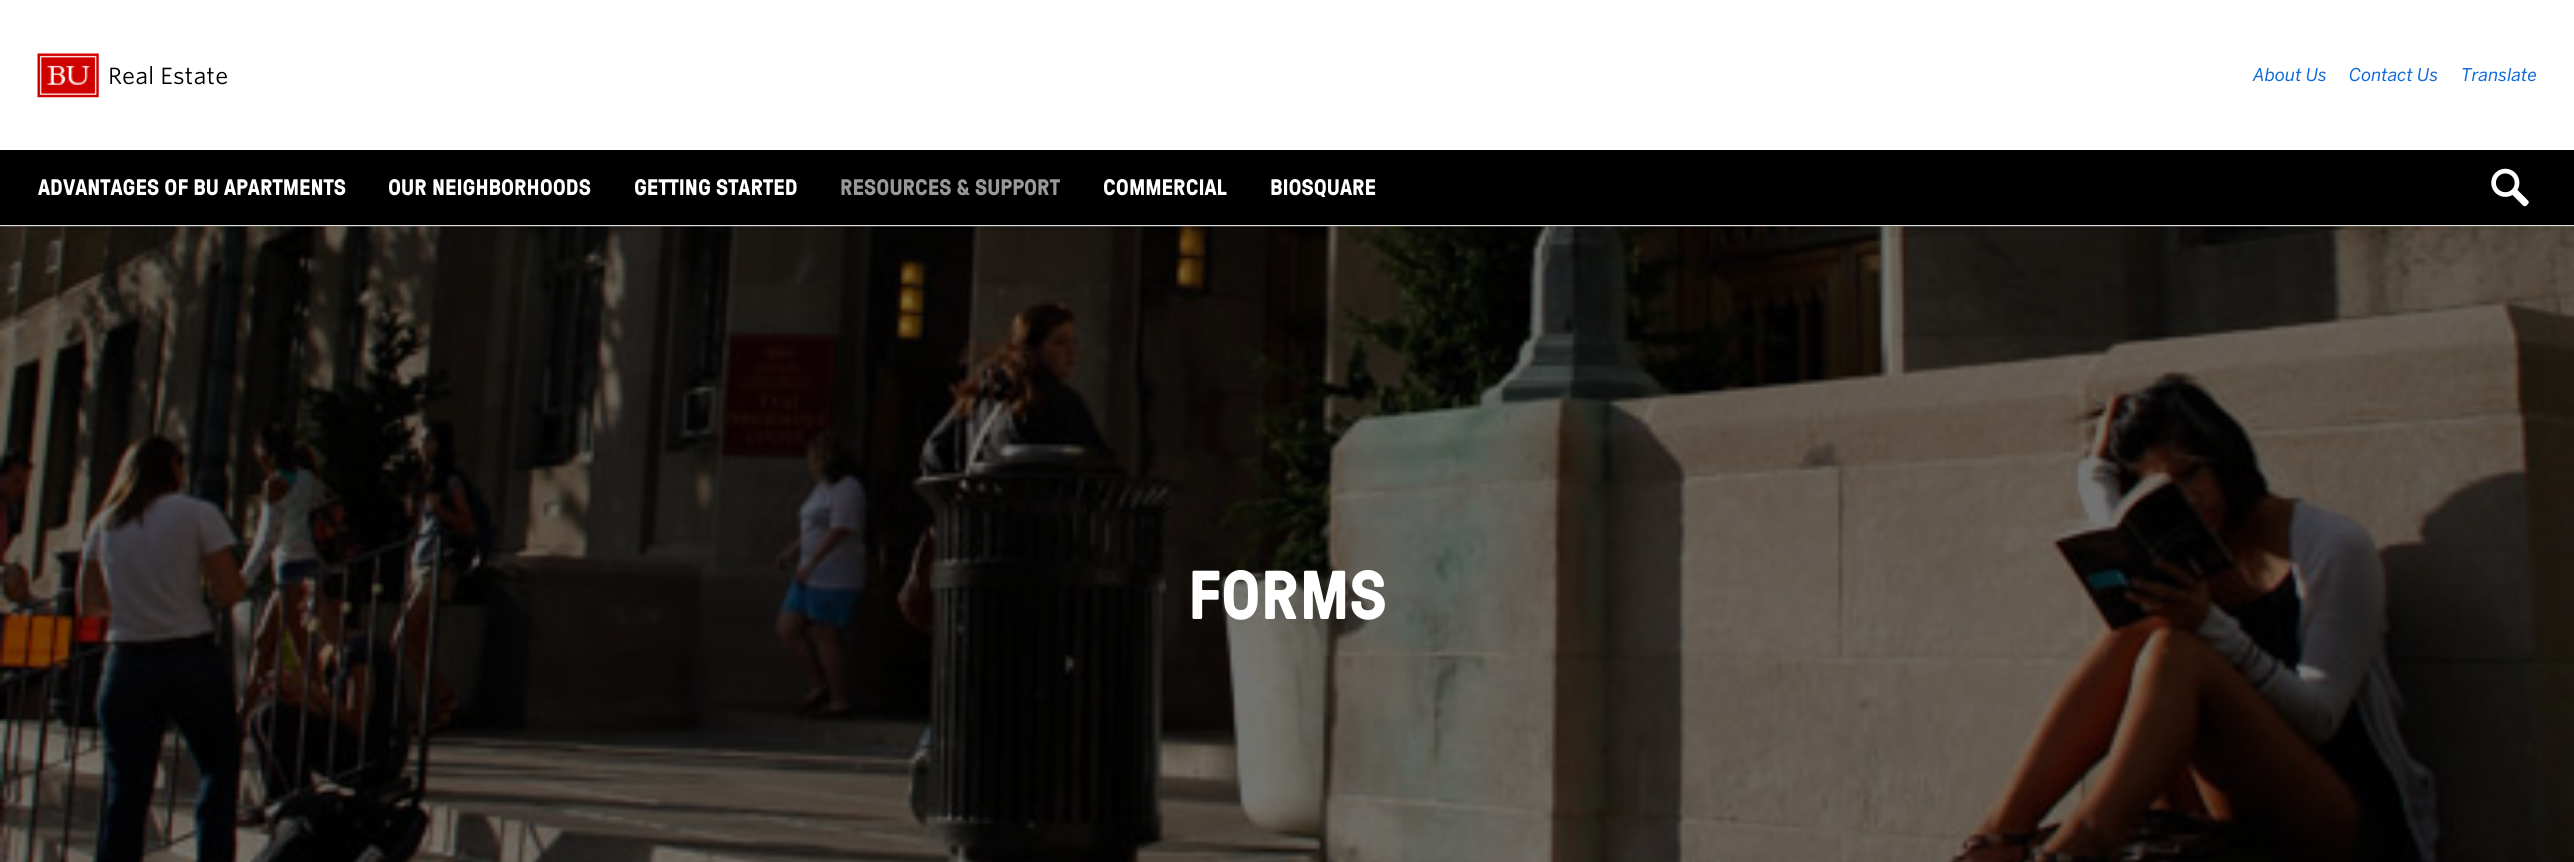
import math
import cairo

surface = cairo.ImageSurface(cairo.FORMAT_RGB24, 2574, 862)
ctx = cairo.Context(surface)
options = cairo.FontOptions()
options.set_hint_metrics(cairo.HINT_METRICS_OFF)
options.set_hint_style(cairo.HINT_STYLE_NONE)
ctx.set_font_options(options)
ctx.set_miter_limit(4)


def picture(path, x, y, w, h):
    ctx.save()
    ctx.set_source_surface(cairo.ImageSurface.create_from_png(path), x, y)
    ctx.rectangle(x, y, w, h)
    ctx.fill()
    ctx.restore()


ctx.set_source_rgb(1, 1, 1)
ctx.paint()
ctx.set_source_rgb(0.867, 0.867, 0.867)
ctx.rectangle(0, 225, 2574, 1)
ctx.fill()
picture("img1.png", 37, 53, 62, 45)
ctx.select_font_face("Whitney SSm")
ctx.set_font_size(22.5)
ctx.set_source_rgb(0, 0, 0)
ctx.move_to(108, 84)
ctx.show_text("Real Estate")
ctx.rectangle(0, 150, 2574, 75)
ctx.fill()
ctx.select_font_face("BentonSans", cairo.FONT_SLANT_ITALIC)
ctx.set_font_size(17.5)
ctx.set_source_rgb(0.059, 0.412, 0.843)
ctx.move_to(2253, 81)
ctx.show_text("About Us")
ctx.move_to(2349, 81)
ctx.show_text("Contact Us")
ctx.move_to(2461, 81)
ctx.show_text("Translate")
ctx.select_font_face("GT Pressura", cairo.FONT_SLANT_NORMAL, cairo.FONT_WEIGHT_BOLD)
ctx.set_font_size(22.5)
ctx.set_source_rgb(1, 1, 1)
ctx.move_to(38, 195)
ctx.show_text("ADVANTAGES OF BU APARTMENTS")
ctx.move_to(388, 195)
ctx.show_text("OUR NEIGHBORHOODS")
ctx.move_to(634, 195)
ctx.show_text("GETTING STARTED")
ctx.set_source_rgb(0.6, 0.6, 0.6)
ctx.move_to(840, 195)
ctx.show_text("RESOURCES & SUPPORT")
ctx.set_source_rgb(1, 1, 1)
ctx.move_to(1103, 195)
ctx.show_text("COMMERCIAL")
ctx.move_to(1270, 195)
ctx.show_text("BIOSQUARE")
picture("img2.png", 2491, 168, 38, 39)
ctx.set_source_rgb(0.451, 0.451, 0.451)
ctx.rectangle(0, 226, 2574, 1)
ctx.fill()
picture("img3.png", 0, 226, 2574, 636)
ctx.set_font_size(69)
ctx.set_source_rgb(1, 1, 1)
ctx.move_to(1188, 619)
ctx.show_text("FORMS")
surface.write_to_png("page.png")
